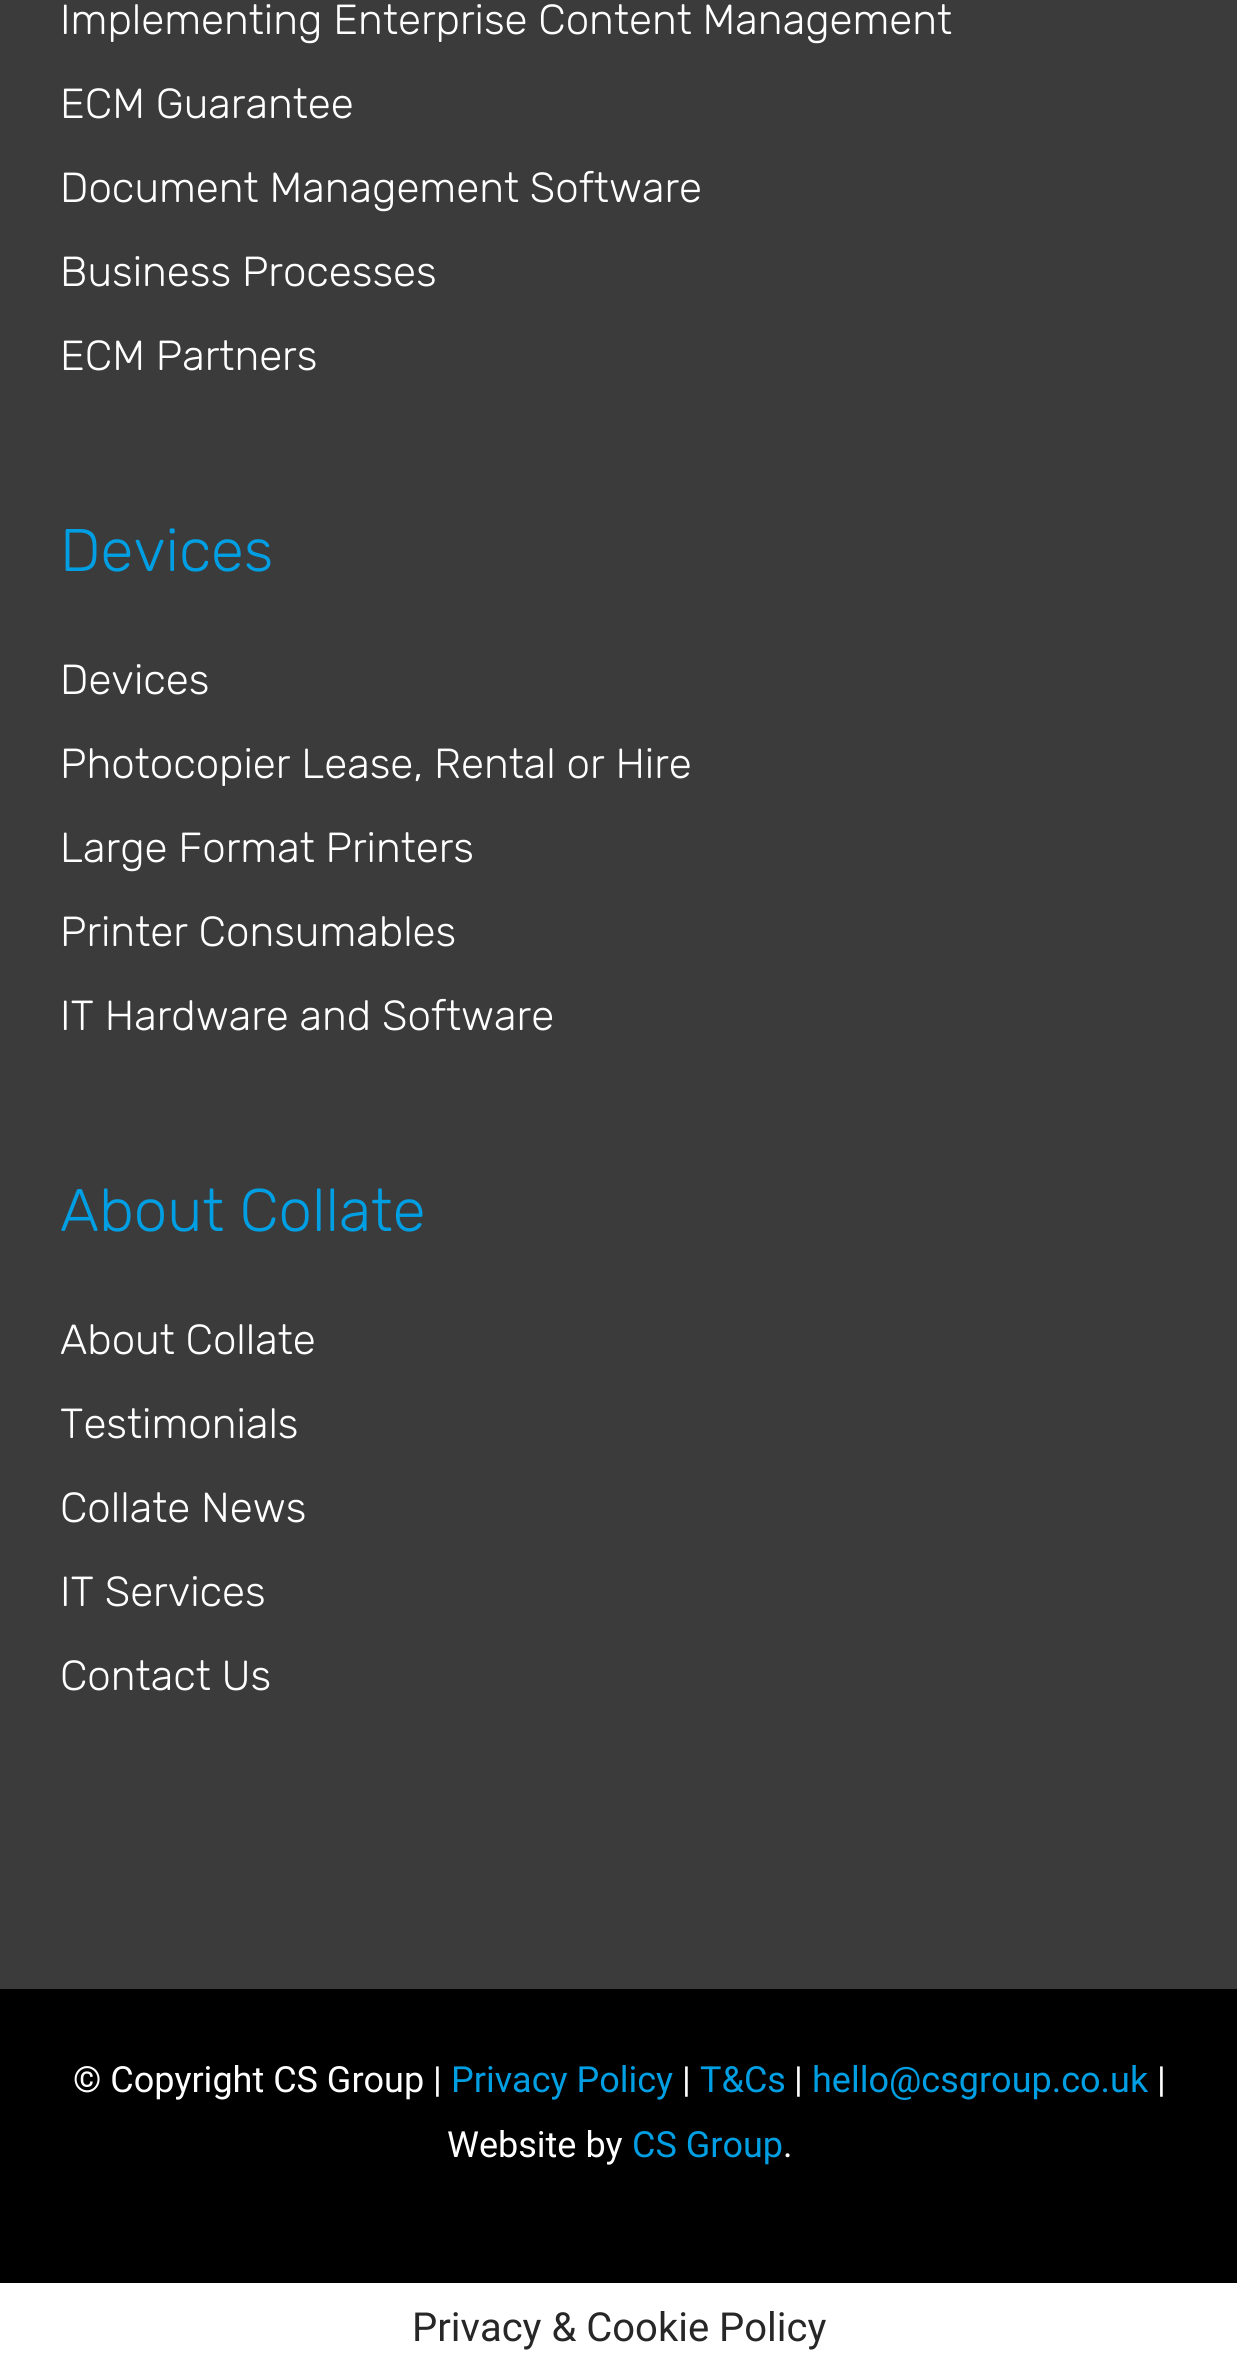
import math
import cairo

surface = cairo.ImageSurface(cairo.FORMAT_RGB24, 1237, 2371)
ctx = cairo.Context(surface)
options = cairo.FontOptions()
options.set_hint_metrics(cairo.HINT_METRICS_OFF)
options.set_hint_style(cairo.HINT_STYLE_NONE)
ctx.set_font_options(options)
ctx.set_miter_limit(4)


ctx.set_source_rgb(1, 1, 1)
ctx.paint()
ctx.set_source_rgb(0.231, 0.231, 0.231)
ctx.rectangle(0, 0, 1237, 1989)
ctx.fill()
ctx.select_font_face("Rubik Light")
ctx.set_font_size(42)
ctx.set_source_rgb(1, 1, 1)
ctx.move_to(60, 34)
ctx.show_text("Implementing Enterprise Content Management")
ctx.move_to(60, 118)
ctx.show_text("ECM Guarantee")
ctx.move_to(60, 202)
ctx.show_text("Document Management Software")
ctx.move_to(60, 286)
ctx.show_text("Business Processes")
ctx.move_to(60, 370)
ctx.show_text("ECM Partners")
ctx.set_font_size(60)
ctx.set_source_rgb(0, 0.624, 0.89)
ctx.move_to(60, 571)
ctx.show_text("Devices")
ctx.set_font_size(42)
ctx.set_source_rgb(1, 1, 1)
ctx.move_to(60, 694)
ctx.show_text("Devices")
ctx.move_to(60, 778)
ctx.show_text("Photocopier Lease, Rental or Hire")
ctx.move_to(60, 862)
ctx.show_text("Large Format Printers")
ctx.move_to(60, 946)
ctx.show_text("Printer Consumables")
ctx.move_to(60, 1030)
ctx.show_text("IT Hardware and Software")
ctx.set_font_size(60)
ctx.set_source_rgb(0, 0.624, 0.89)
ctx.move_to(60, 1231)
ctx.show_text("About Collate")
ctx.set_font_size(42)
ctx.set_source_rgb(1, 1, 1)
ctx.move_to(60, 1354)
ctx.show_text("About Collate")
ctx.move_to(60, 1438)
ctx.show_text("Testimonials")
ctx.move_to(60, 1522)
ctx.show_text("Collate News")
ctx.move_to(60, 1606)
ctx.show_text("IT Services")
ctx.move_to(60, 1690)
ctx.show_text("Contact Us")
ctx.set_source_rgb(0, 0, 0)
ctx.rectangle(0, 1989, 1237, 294)
ctx.fill()
ctx.select_font_face("Roboto")
ctx.set_font_size(36)
ctx.set_source_rgb(1, 1, 1)
ctx.move_to(73, 2092)
ctx.show_text("© Copyright CS Group |")
ctx.set_source_rgb(0, 0.624, 0.89)
ctx.move_to(451, 2092)
ctx.show_text("Privacy Policy")
ctx.set_source_rgb(1, 1, 1)
ctx.move_to(682, 2092)
ctx.show_text("|")
ctx.set_source_rgb(0, 0.624, 0.89)
ctx.move_to(700, 2092)
ctx.show_text("T&Cs")
ctx.set_source_rgb(1, 1, 1)
ctx.move_to(794, 2092)
ctx.show_text("|")
ctx.set_source_rgb(0, 0.624, 0.89)
ctx.move_to(812, 2092)
ctx.show_text("hello@csgroup.co.uk")
ctx.set_source_rgb(1, 1, 1)
ctx.move_to(1157, 2092)
ctx.show_text("|")
ctx.move_to(447, 2157)
ctx.show_text("Website by")
ctx.set_source_rgb(0, 0.624, 0.89)
ctx.move_to(632, 2157)
ctx.show_text("CS Group")
ctx.set_source_rgb(1, 1, 1)
ctx.move_to(783, 2157)
ctx.show_text(".")
ctx.set_font_size(40)
ctx.set_source_rgb(0.153, 0.153, 0.153)
ctx.move_to(412, 2341)
ctx.show_text("Privacy & Cookie Policy")
surface.write_to_png("page.png")
